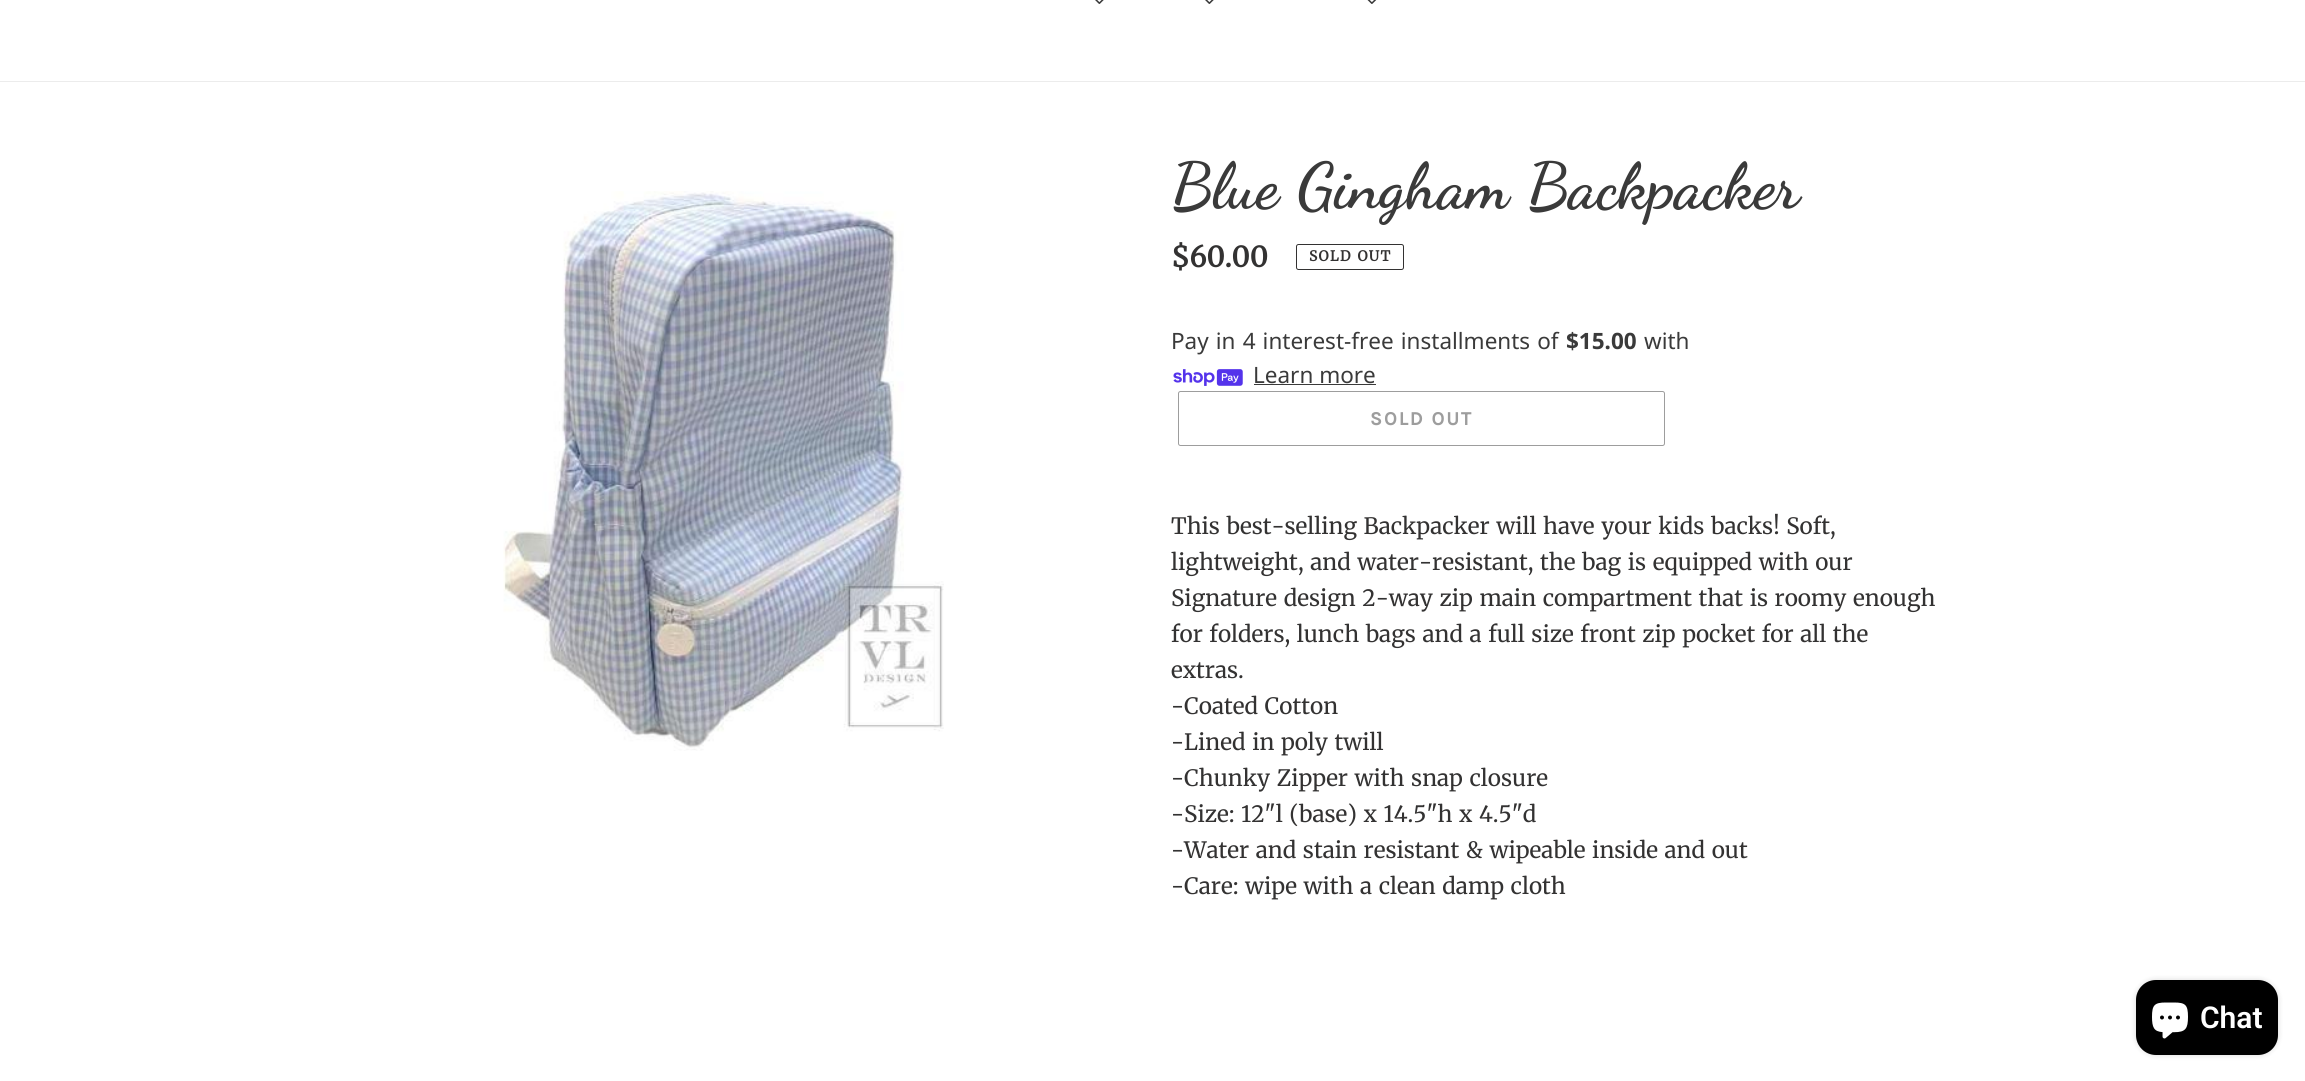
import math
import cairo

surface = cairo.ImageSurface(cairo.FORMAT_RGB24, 2305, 1081)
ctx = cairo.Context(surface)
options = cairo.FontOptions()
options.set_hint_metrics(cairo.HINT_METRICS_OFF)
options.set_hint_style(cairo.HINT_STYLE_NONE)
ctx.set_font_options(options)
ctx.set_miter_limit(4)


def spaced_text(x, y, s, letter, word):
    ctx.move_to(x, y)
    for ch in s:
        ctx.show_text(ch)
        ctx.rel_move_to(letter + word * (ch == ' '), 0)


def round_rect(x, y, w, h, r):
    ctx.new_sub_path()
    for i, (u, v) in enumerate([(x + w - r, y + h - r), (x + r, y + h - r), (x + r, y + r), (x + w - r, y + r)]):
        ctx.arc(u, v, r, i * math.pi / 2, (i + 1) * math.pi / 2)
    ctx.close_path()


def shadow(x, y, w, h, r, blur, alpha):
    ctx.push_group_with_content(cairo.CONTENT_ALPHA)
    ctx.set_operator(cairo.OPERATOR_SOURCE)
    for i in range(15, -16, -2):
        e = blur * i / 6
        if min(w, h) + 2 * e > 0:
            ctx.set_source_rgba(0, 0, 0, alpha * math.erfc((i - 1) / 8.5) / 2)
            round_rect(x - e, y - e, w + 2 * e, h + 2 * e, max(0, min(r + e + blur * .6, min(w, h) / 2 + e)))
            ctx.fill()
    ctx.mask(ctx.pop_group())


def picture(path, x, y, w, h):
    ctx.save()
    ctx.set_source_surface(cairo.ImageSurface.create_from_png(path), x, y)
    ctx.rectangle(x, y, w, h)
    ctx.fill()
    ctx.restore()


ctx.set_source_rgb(1, 1, 1)
ctx.paint()
ctx.set_source_rgb(0.922, 0.922, 0.922)
ctx.rectangle(0, 81, 2305, 1)
ctx.fill()
picture("img1.png", 1095, 0, 9, 4)
picture("img1.png", 1205, 0, 9, 4)
picture("img2.png", 1367, 0, 10, 4)
picture("img3.png", 503, 191, 441, 560)
ctx.select_font_face("Dancing Script", cairo.FONT_SLANT_NORMAL, cairo.FONT_WEIGHT_BOLD)
ctx.set_font_size(64.25)
ctx.set_source_rgb(0.227, 0.227, 0.227)
spaced_text(1171, 207, "Blue Gingham Backpacker", 0, 1.25)
ctx.select_font_face("Merriweather", cairo.FONT_SLANT_NORMAL, cairo.FONT_WEIGHT_BOLD)
ctx.set_font_size(28)
ctx.set_source_rgb(0.2, 0.196, 0.196)
ctx.move_to(1171, 267)
ctx.show_text("$60.00")
round_rect(1296.5, 244.5, 107, 25, 2)
ctx.set_line_width(1)
ctx.stroke()
ctx.set_font_size(14)
spaced_text(1309, 261, "SOLD OUT", 1.25, 1.25)
ctx.select_font_face("Noto Sans")
ctx.set_font_size(22.5)
ctx.set_source_rgb(0.227, 0.227, 0.227)
spaced_text(1171, 349, "Pay in 4 interest-free installments of", 0, 1.25)
ctx.select_font_face("Noto Sans", cairo.FONT_SLANT_NORMAL, cairo.FONT_WEIGHT_BOLD)
ctx.move_to(1566, 349)
ctx.show_text("$15.00")
ctx.select_font_face("Noto Sans")
ctx.move_to(1644, 349)
ctx.show_text("with")
picture("img4.png", 1173, 369, 70, 17)
ctx.move_to(1253, 383)
ctx.show_text("Learn more")
ctx.rectangle(1254, 384, 122, 1)
ctx.fill()
round_rect(1178.5, 391.5, 486, 54, 2)
ctx.set_source_rgb(0.616, 0.616, 0.616)
ctx.stroke()
ctx.select_font_face("Karla", cairo.FONT_SLANT_NORMAL, cairo.FONT_WEIGHT_BOLD)
ctx.set_font_size(19.25)
spaced_text(1370, 425, "SOLD OUT", 2, 0)
ctx.select_font_face("Merriweather Light")
ctx.set_font_size(22.5)
ctx.set_source_rgb(0.2, 0.196, 0.196)
spaced_text(1171, 534, "This best-selling Backpacker will have your kids backs! Soft,", 0, 1.25)
spaced_text(1171, 570, "lightweight, and water-resistant, the bag is equipped with our", 0, 1.25)
spaced_text(1171, 606, "Signature design 2-way zip main compartment that is roomy enough", 0, 1.25)
spaced_text(1171, 642, "for folders, lunch bags and a full size front zip pocket for all the", 0, 1.25)
ctx.move_to(1171, 678)
ctx.show_text("extras.")
spaced_text(1171, 714, "-Coated Cotton", 0, 1.25)
spaced_text(1171, 750, "-Lined in poly twill", 0, 1.25)
spaced_text(1171, 786, "-Chunky Zipper with snap closure", 0, 1.25)
spaced_text(1171, 822, "-Size: 12\"l (base) x 14.5\"h x 4.5\"d", 0, 1.25)
spaced_text(1171, 858, "-Water and stain resistant & wipeable inside and out", 0, 1.25)
spaced_text(1171, 894, "-Care: wipe with a clean damp cloth", 0, 1.25)
ctx.set_source_rgb(0, 0, 0)
shadow(2136, 980, 142, 75, 20, 3, 0.15)
ctx.set_source_rgb(0, 0, 0)
round_rect(2136, 980, 142, 75, 20)
ctx.fill()
picture("img5.png", 2152, 1002, 36, 37)
ctx.select_font_face("Roboto SemiBold")
ctx.set_font_size(30)
ctx.set_source_rgb(1, 1, 1)
ctx.move_to(2200, 1028)
ctx.show_text("Chat")
surface.write_to_png("page.png")
